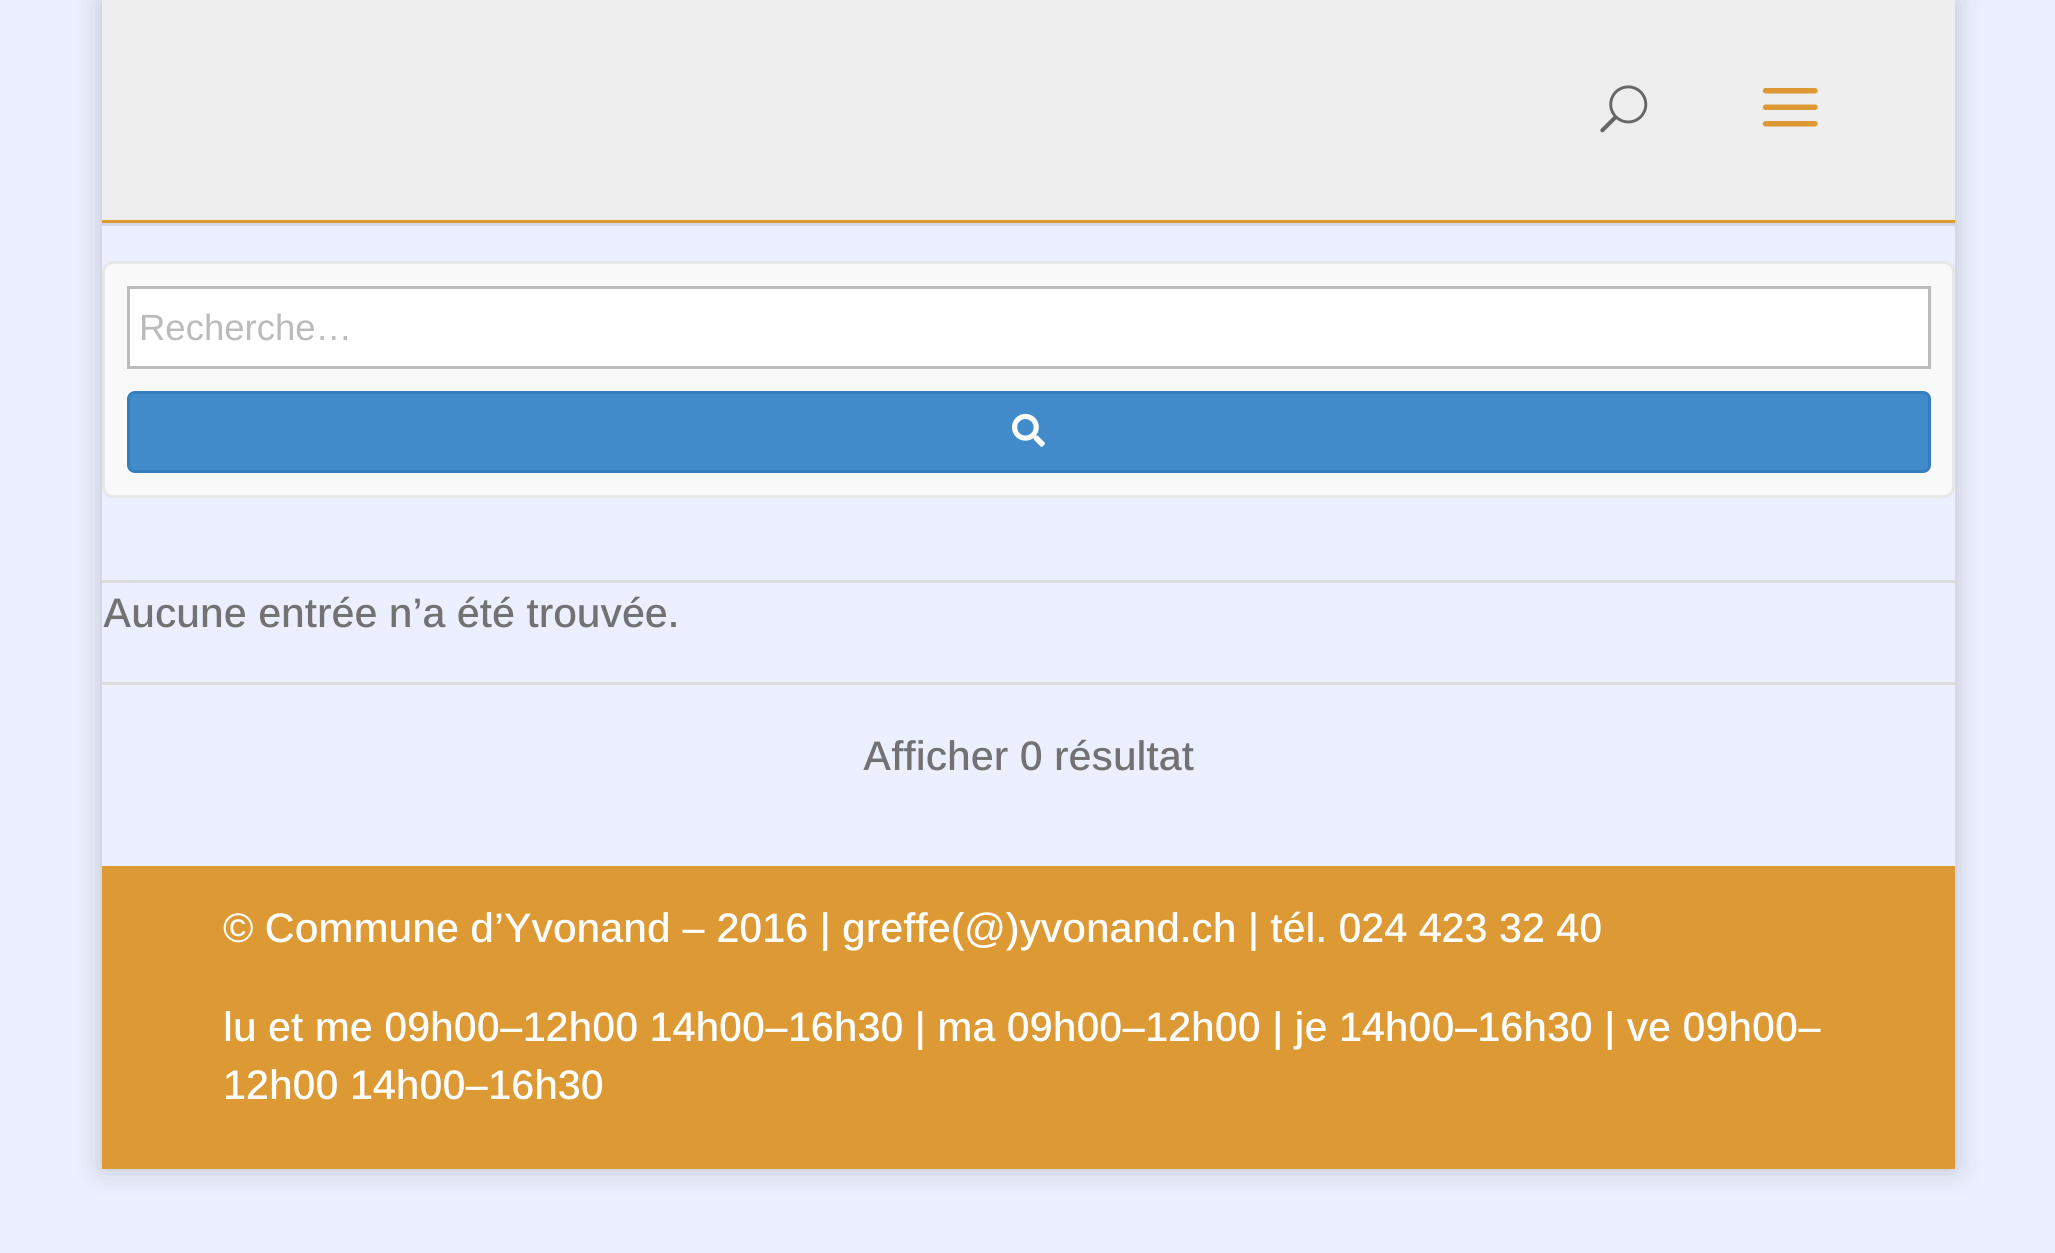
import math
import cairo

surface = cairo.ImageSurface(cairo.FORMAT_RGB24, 2055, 1253)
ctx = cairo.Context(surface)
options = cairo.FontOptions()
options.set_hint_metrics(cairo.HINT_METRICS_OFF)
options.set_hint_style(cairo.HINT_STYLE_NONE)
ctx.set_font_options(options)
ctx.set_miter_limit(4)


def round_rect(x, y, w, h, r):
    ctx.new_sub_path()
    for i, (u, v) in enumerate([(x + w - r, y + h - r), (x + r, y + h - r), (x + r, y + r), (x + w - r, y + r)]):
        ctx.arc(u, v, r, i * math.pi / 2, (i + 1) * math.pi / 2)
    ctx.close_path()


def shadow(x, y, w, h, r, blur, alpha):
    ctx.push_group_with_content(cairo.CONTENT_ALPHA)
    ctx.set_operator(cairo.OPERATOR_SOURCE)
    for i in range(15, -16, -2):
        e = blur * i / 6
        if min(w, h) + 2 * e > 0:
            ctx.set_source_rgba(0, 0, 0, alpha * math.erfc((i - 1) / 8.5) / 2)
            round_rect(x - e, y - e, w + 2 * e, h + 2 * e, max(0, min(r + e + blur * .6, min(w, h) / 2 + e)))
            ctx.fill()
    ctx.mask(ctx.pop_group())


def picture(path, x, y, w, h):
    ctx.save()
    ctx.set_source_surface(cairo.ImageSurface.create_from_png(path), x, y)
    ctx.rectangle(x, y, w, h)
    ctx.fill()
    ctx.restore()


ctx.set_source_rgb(0.918, 0.937, 1)
ctx.paint()
ctx.save()
ctx.set_fill_rule(cairo.FILL_RULE_EVEN_ODD)
ctx.new_path()
ctx.move_to(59, 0)
ctx.line_to(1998, 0)
ctx.line_to(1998, 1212)
ctx.line_to(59, 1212)
ctx.close_path()
ctx.move_to(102, 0)
ctx.line_to(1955, 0)
ctx.line_to(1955, 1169)
ctx.line_to(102, 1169)
ctx.close_path()
ctx.clip()
ctx.set_source_rgb(0, 0, 0)
shadow(102, 0, 1853, 1169, 0, 14, 0.2)
ctx.restore()
ctx.set_source_rgb(0.827, 0.843, 0.902)
ctx.rectangle(102, 223, 1853, 3)
ctx.fill()
ctx.set_source_rgb(0.933, 0.933, 0.933)
ctx.rectangle(102, 0, 1853, 220)
ctx.fill()
ctx.set_source_rgb(0.867, 0.6, 0.2)
ctx.rectangle(102, 220, 1853, 3)
ctx.fill()
picture("img1.png", 1600, 85, 48, 48)
picture("img2.png", 1762, 88, 56, 39)
ctx.set_source_rgb(0.973, 0.973, 0.973)
round_rect(103.5, 262.5, 1850, 234, 9.5)
ctx.fill_preserve()
ctx.set_source_rgb(0.906, 0.906, 0.906)
ctx.set_line_width(3)
ctx.stroke()
ctx.set_source_rgb(1, 1, 1)
ctx.rectangle(128.5, 287.5, 1801, 80)
ctx.fill_preserve()
ctx.set_source_rgb(0.733, 0.733, 0.733)
ctx.stroke()
ctx.select_font_face("Arimo")
ctx.set_font_size(36.5)
ctx.move_to(139, 340)
ctx.show_text("Recherche…")
ctx.set_source_rgb(0.259, 0.545, 0.792)
round_rect(128.5, 392.5, 1801, 79, 6.5)
ctx.fill_preserve()
ctx.set_source_rgb(0.208, 0.494, 0.741)
ctx.stroke()
picture("img3.png", 1012, 413, 33, 34)
ctx.set_source_rgb(0.867, 0.867, 0.867)
ctx.rectangle(102, 580, 1853, 3)
ctx.fill()
ctx.select_font_face("Arimo Medium")
ctx.set_font_size(41.25)
ctx.set_source_rgb(0.447, 0.447, 0.447)
ctx.move_to(103, 627)
ctx.show_text("Aucune entrée n’a été trouvée.")
ctx.set_source_rgb(0.867, 0.867, 0.867)
ctx.rectangle(102, 682, 1853, 3)
ctx.fill()
ctx.set_source_rgb(0.447, 0.447, 0.447)
ctx.move_to(863, 770)
ctx.show_text("Afficher 0 résultat")
ctx.set_source_rgb(0.867, 0.6, 0.2)
ctx.rectangle(102, 866, 1853, 303)
ctx.fill()
ctx.set_source_rgb(1, 1, 1)
ctx.move_to(223, 942)
ctx.show_text("© Commune d’Yvonand – 2016 | greffe(@)yvonand.ch | tél. 024 423 32 40")
ctx.move_to(223, 1041)
ctx.show_text("lu et me 09h00–12h00 14h00–16h30 | ma 09h00–12h00 | je 14h00–16h30 | ve 09h00–")
ctx.move_to(223, 1099)
ctx.show_text("12h00 14h00–16h30")
surface.write_to_png("page.png")
